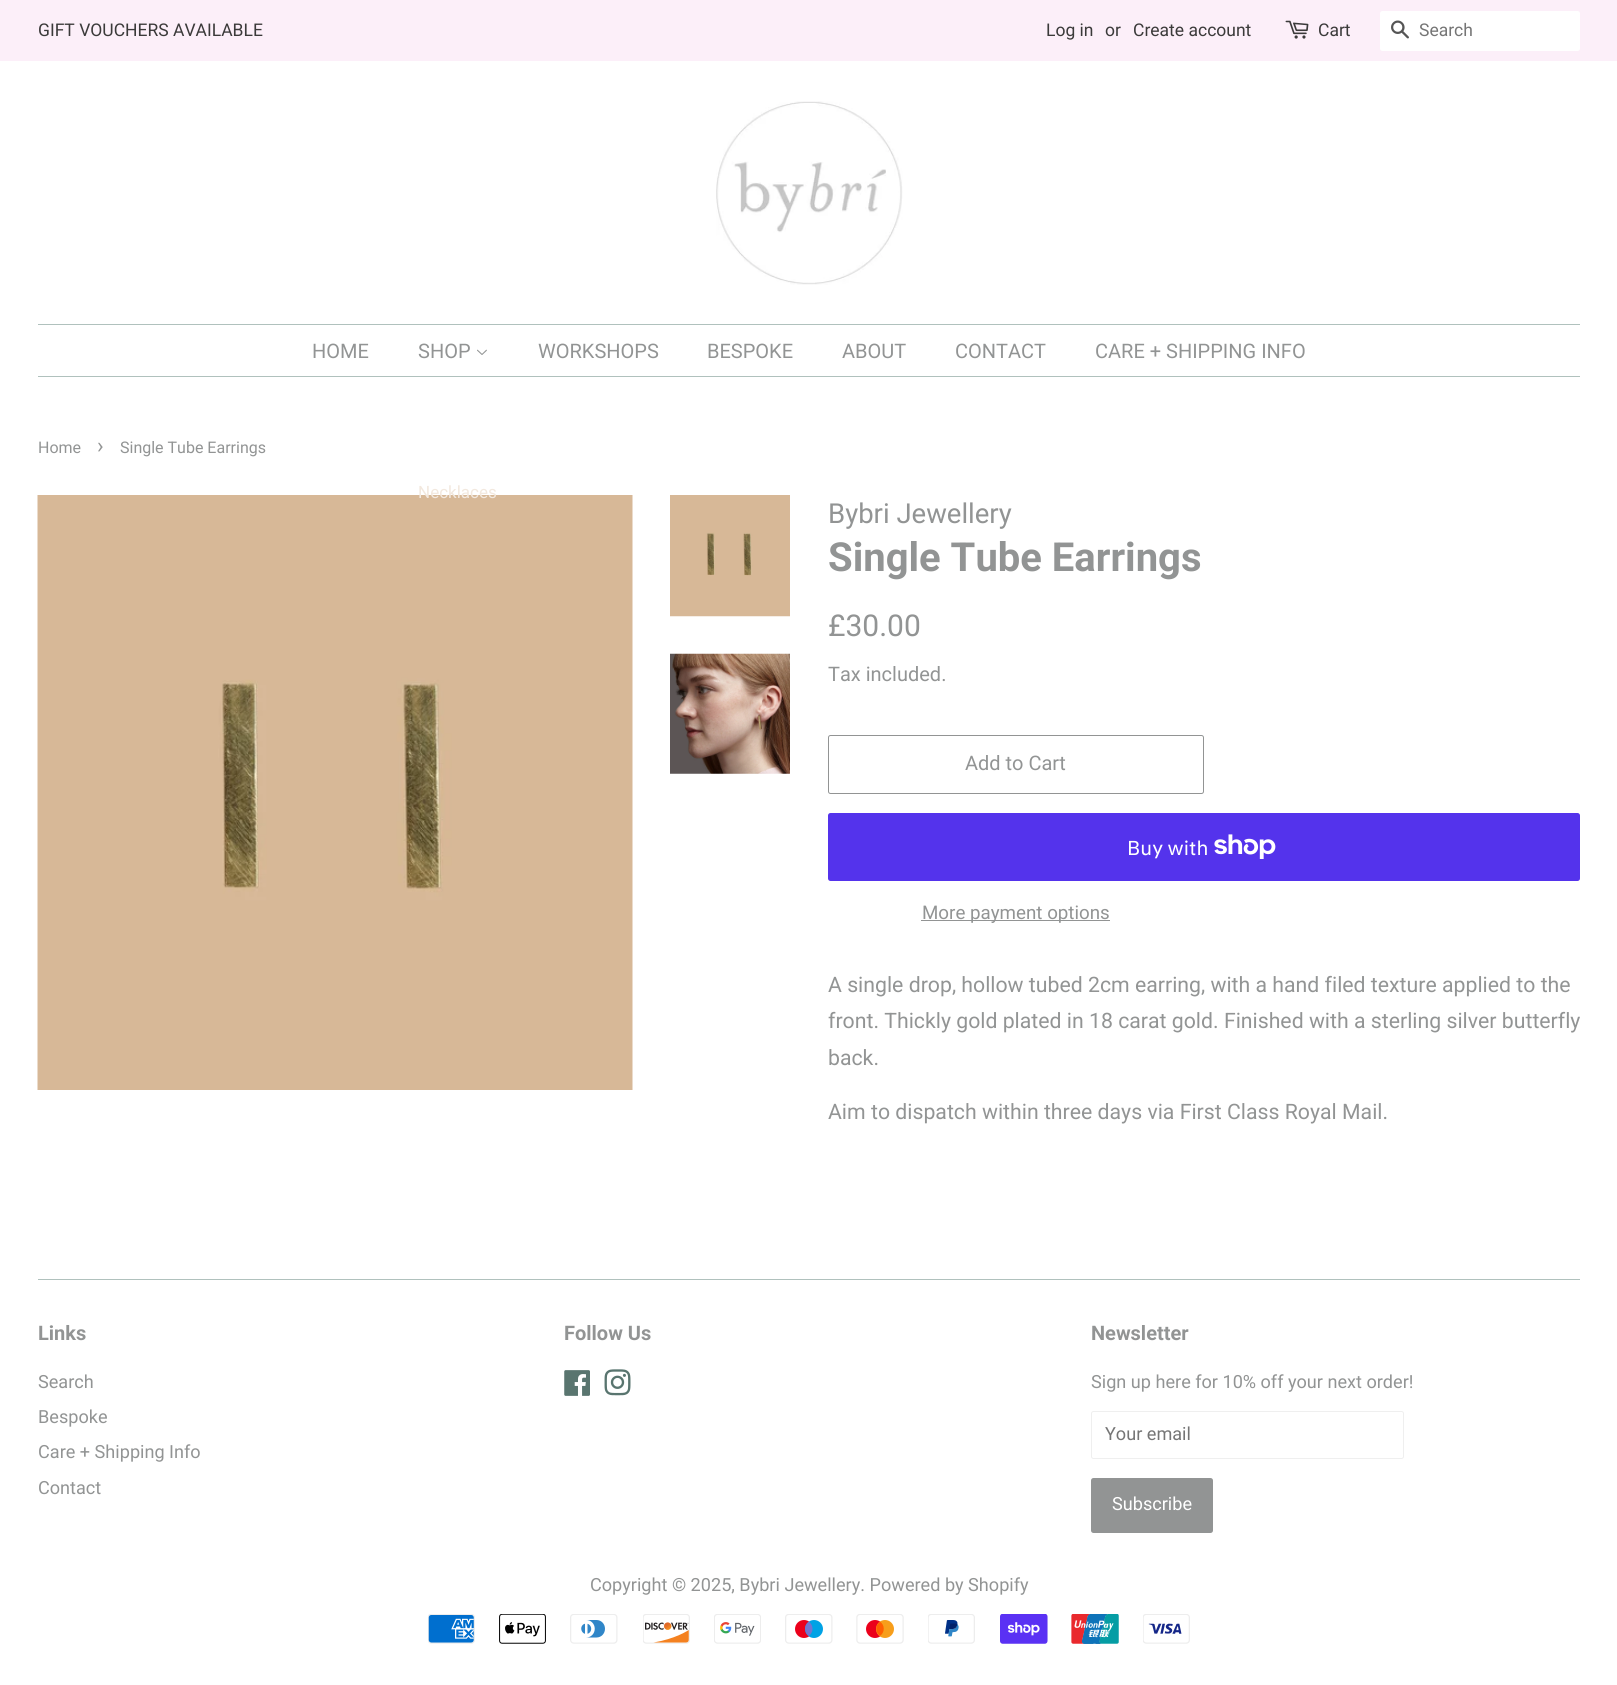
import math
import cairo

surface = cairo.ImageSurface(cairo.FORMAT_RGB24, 1617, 1685)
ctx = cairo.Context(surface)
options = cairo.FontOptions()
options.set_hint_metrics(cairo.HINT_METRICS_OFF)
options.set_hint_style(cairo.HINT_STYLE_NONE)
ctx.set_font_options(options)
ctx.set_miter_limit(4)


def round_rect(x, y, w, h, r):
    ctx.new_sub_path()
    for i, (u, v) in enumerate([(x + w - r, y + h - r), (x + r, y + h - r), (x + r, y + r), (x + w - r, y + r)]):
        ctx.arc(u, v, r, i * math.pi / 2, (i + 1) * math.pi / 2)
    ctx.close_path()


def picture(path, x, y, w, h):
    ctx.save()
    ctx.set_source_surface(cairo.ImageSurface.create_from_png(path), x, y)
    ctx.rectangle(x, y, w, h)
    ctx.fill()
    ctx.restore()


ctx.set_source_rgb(1, 1, 1)
ctx.paint()
ctx.set_source_rgb(0.988, 0.937, 0.973)
ctx.rectangle(0, 0, 1617, 61)
ctx.fill()
ctx.select_font_face("Roboto")
ctx.set_font_size(17.5)
ctx.set_source_rgb(0.231, 0.227, 0.227)
ctx.move_to(38, 36)
ctx.show_text("GIFT VOUCHERS AVAILABLE")
ctx.move_to(1046, 36)
ctx.show_text("Log in")
ctx.move_to(1105, 36)
ctx.show_text("or")
ctx.move_to(1133, 36)
ctx.show_text("Create account")
picture("img1.png", 1285, 20, 24, 19)
ctx.move_to(1318, 36)
ctx.show_text("Cart")
ctx.set_source_rgb(1, 1, 1)
round_rect(1380, 11, 200, 40, 2.5)
ctx.fill()
picture("img2.png", 1391, 20, 18, 19)
ctx.set_source_rgb(0.459, 0.459, 0.459)
ctx.move_to(1419, 36)
ctx.show_text("Search")
picture("img3.png", 716, 101, 187, 184)
ctx.set_source_rgb(0.69, 0.757, 0.741)
ctx.rectangle(38, 324, 1542, 1)
ctx.fill()
ctx.rectangle(38, 376, 1542, 1)
ctx.fill()
ctx.set_font_size(20)
ctx.set_source_rgb(0.573, 0.58, 0.58)
ctx.move_to(312, 358)
ctx.show_text("HOME")
ctx.move_to(418, 358)
ctx.show_text("SHOP")
picture("img4.png", 477, 349, 10, 6)
picture("img5.png", 37, 495, 596, 595)
ctx.set_font_size(17)
ctx.set_source_rgb(0.949, 0.91, 0.871)
ctx.move_to(418, 498)
ctx.show_text("Necklaces")
ctx.set_font_size(20)
ctx.set_source_rgb(0.573, 0.58, 0.58)
ctx.move_to(538, 358)
ctx.show_text("WORKSHOPS")
ctx.move_to(707, 358)
ctx.show_text("BESPOKE")
ctx.move_to(842, 358)
ctx.show_text("ABOUT")
ctx.move_to(955, 358)
ctx.show_text("CONTACT")
ctx.move_to(1095, 358)
ctx.show_text("CARE + SHIPPING INFO")
ctx.set_font_size(16)
ctx.move_to(38, 453)
ctx.show_text("Home")
ctx.set_font_size(22)
ctx.move_to(97, 453)
ctx.show_text("›")
ctx.set_font_size(16)
ctx.move_to(120, 453)
ctx.show_text("Single Tube Earrings")
picture("img6.png", 670, 495, 120, 122)
picture("img7.png", 670, 653, 120, 121)
ctx.set_font_size(27.5)
ctx.move_to(828, 523)
ctx.show_text("Bybri Jewellery")
ctx.select_font_face("Roboto", cairo.FONT_SLANT_NORMAL, cairo.FONT_WEIGHT_BOLD)
ctx.set_font_size(40)
ctx.move_to(828, 571)
ctx.show_text("Single Tube Earrings")
ctx.select_font_face("Roboto")
ctx.set_font_size(30)
ctx.move_to(828, 636)
ctx.show_text("£30.00")
ctx.set_font_size(20)
ctx.move_to(828, 681)
ctx.show_text("Tax included.")
round_rect(828.5, 735.5, 375, 58, 2)
ctx.set_line_width(1)
ctx.stroke()
ctx.move_to(965, 770)
ctx.show_text("Add to Cart")
ctx.set_source_rgb(0.329, 0.2, 0.922)
round_rect(828, 813, 752, 68, 2.5)
ctx.fill()
ctx.select_font_face("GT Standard")
ctx.set_source_rgb(1, 1, 1)
ctx.move_to(1127, 855)
ctx.show_text("Buy with")
picture("img8.png", 1214, 834, 62, 25)
ctx.set_source_rgb(0.573, 0.58, 0.58)
ctx.rectangle(921, 920, 189, 1)
ctx.fill()
ctx.select_font_face("Roboto")
ctx.set_font_size(18.75)
ctx.move_to(922, 919)
ctx.show_text("More payment options")
ctx.set_font_size(21.25)
ctx.move_to(828, 992)
ctx.show_text("A single drop, hollow tubed 2cm earring, with a hand filed texture applied to the")
ctx.move_to(828, 1028)
ctx.show_text("front. Thickly gold plated in 18 carat gold. Finished with a sterling silver butterfly")
ctx.move_to(828, 1065)
ctx.show_text("back.")
ctx.move_to(828, 1119)
ctx.show_text("Aim to dispatch within three days via First Class Royal Mail.")
ctx.set_source_rgb(0.69, 0.757, 0.741)
ctx.rectangle(38, 1279, 1542, 1)
ctx.fill()
ctx.select_font_face("Roboto", cairo.FONT_SLANT_NORMAL, cairo.FONT_WEIGHT_BOLD)
ctx.set_font_size(20)
ctx.set_source_rgb(0.573, 0.58, 0.58)
ctx.move_to(38, 1340)
ctx.show_text("Links")
ctx.select_font_face("Roboto")
ctx.set_font_size(18.1)
ctx.move_to(38, 1388)
ctx.show_text("Search")
ctx.move_to(38, 1423)
ctx.show_text("Bespoke")
ctx.move_to(38, 1458)
ctx.show_text("Care + Shipping Info")
ctx.move_to(38, 1494)
ctx.show_text("Contact")
ctx.select_font_face("Roboto", cairo.FONT_SLANT_NORMAL, cairo.FONT_WEIGHT_BOLD)
ctx.set_font_size(20)
ctx.move_to(564, 1340)
ctx.show_text("Follow Us")
picture("img9.png", 564, 1370, 26, 26)
picture("img10.png", 604, 1369, 27, 27)
ctx.move_to(1091, 1340)
ctx.show_text("Newsletter")
ctx.select_font_face("Roboto")
ctx.set_font_size(18.1)
ctx.move_to(1091, 1388)
ctx.show_text("Sign up here for 10% off your next order!")
round_rect(1091.5, 1411.5, 312, 47, 2)
ctx.set_source_rgb(0.937, 0.937, 0.937)
ctx.stroke()
ctx.set_source_rgb(0.459, 0.459, 0.459)
ctx.move_to(1105, 1440)
ctx.show_text("Your email")
ctx.set_source_rgb(0.573, 0.58, 0.58)
round_rect(1091, 1478, 122, 55, 2.5)
ctx.fill()
ctx.set_source_rgb(1, 1, 1)
ctx.move_to(1112, 1510)
ctx.show_text("Subscribe")
ctx.set_source_rgb(0.573, 0.58, 0.58)
ctx.move_to(590, 1591)
ctx.show_text("Copyright © 2025, Bybri Jewellery. Powered by Shopify")
picture("img11.png", 428, 1614, 47, 30)
picture("img12.png", 499, 1614, 47, 30)
picture("img13.png", 570, 1614, 48, 30)
picture("img14.png", 643, 1614, 47, 30)
picture("img15.png", 714, 1614, 47, 30)
picture("img16.png", 785, 1614, 48, 30)
picture("img17.png", 856, 1614, 48, 30)
picture("img18.png", 928, 1614, 47, 30)
picture("img19.png", 1000, 1614, 48, 30)
picture("img20.png", 1071, 1614, 48, 30)
picture("img21.png", 1143, 1614, 47, 30)
surface.write_to_png("page.png")
